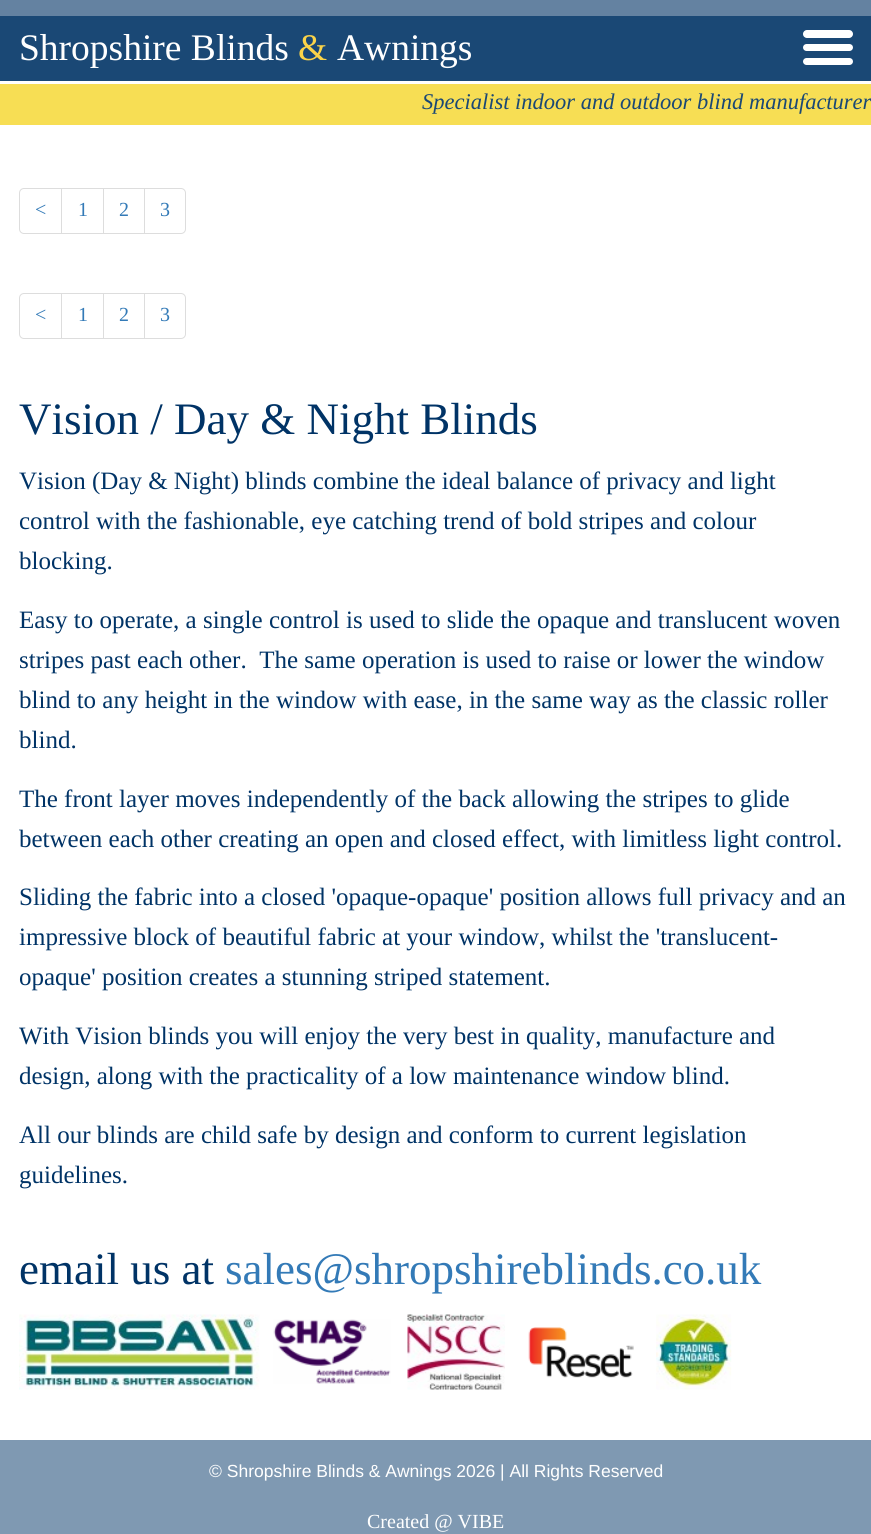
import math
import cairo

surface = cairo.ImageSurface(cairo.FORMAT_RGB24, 871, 1534)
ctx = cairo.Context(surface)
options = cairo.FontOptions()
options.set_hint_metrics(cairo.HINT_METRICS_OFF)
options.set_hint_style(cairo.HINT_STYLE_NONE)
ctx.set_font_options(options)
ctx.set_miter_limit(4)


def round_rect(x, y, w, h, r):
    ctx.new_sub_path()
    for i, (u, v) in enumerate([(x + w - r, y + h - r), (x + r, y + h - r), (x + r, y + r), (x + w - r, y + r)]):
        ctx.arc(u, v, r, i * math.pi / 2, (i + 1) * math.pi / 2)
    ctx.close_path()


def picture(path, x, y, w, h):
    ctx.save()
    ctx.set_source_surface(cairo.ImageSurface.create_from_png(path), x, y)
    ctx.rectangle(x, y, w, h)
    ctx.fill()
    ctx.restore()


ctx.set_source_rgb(1, 1, 1)
ctx.paint()
ctx.set_source_rgb(0.102, 0.282, 0.459)
ctx.rectangle(0, 16, 871, 65)
ctx.fill()
ctx.set_source_rgb(1, 1, 1)
round_rect(803, 30, 50, 8, 4)
ctx.fill()
round_rect(803, 44, 50, 7, 3.5)
ctx.fill()
round_rect(803, 58, 50, 7, 3.5)
ctx.fill()
ctx.set_source_rgb(0.392, 0.51, 0.631)
ctx.rectangle(0, 0, 871, 16)
ctx.fill()
ctx.select_font_face("Liberation Serif")
ctx.set_font_size(37.5)
ctx.set_source_rgb(1, 1, 1)
ctx.move_to(19, 60)
ctx.show_text("Shropshire Blinds")
ctx.set_source_rgb(0.984, 0.831, 0.286)
ctx.move_to(298, 60)
ctx.show_text("&")
ctx.set_source_rgb(1, 1, 1)
ctx.move_to(337, 60)
ctx.show_text("Awnings")
ctx.set_source_rgb(0.965, 0.871, 0.329)
ctx.rectangle(0, 84, 871, 41)
ctx.fill()
ctx.select_font_face("Liberation Serif", cairo.FONT_SLANT_ITALIC)
ctx.set_font_size(22.5)
ctx.set_source_rgb(0.102, 0.282, 0.459)
ctx.move_to(422, 109)
ctx.show_text("Specialist indoor and outdoor blind manufacturer")
ctx.new_path()
ctx.move_to(24, 188.5)
ctx.line_to(62.5, 188.5)
ctx.line_to(62.5, 233.5)
ctx.line_to(24, 233.5)
ctx.curve_to(21.5, 233.5, 19.5, 231.5, 19.5, 229)
ctx.line_to(19.5, 193)
ctx.curve_to(19.5, 190.5, 21.5, 188.5, 24, 188.5)
ctx.close_path()
ctx.set_source_rgb(0.867, 0.867, 0.867)
ctx.set_line_width(1)
ctx.stroke()
ctx.select_font_face("Liberation Serif")
ctx.set_font_size(20)
ctx.set_source_rgb(0.2, 0.478, 0.718)
ctx.move_to(35, 216)
ctx.show_text("<")
ctx.set_source_rgb(1, 1, 1)
ctx.rectangle(62, 189, 1, 44)
ctx.fill()
ctx.rectangle(61.5, 188.5, 42, 45)
ctx.set_source_rgb(0.867, 0.867, 0.867)
ctx.stroke()
ctx.set_source_rgb(0.2, 0.478, 0.718)
ctx.move_to(78, 216)
ctx.show_text("1")
ctx.rectangle(103.5, 188.5, 41, 45)
ctx.set_source_rgb(0.867, 0.867, 0.867)
ctx.stroke()
ctx.set_source_rgb(0.2, 0.478, 0.718)
ctx.move_to(119, 216)
ctx.show_text("2")
ctx.set_source_rgb(1, 1, 1)
ctx.new_path()
ctx.move_to(144.5, 188.5)
ctx.line_to(181, 188.5)
ctx.curve_to(183.5, 188.5, 185.5, 190.5, 185.5, 193)
ctx.line_to(185.5, 229)
ctx.curve_to(185.5, 231.5, 183.5, 233.5, 181, 233.5)
ctx.line_to(144.5, 233.5)
ctx.close_path()
ctx.fill_preserve()
ctx.set_source_rgb(0.867, 0.867, 0.867)
ctx.stroke()
ctx.set_source_rgb(0.2, 0.478, 0.718)
ctx.move_to(160, 216)
ctx.show_text("3")
ctx.new_path()
ctx.move_to(24, 293.5)
ctx.line_to(62.5, 293.5)
ctx.line_to(62.5, 338.5)
ctx.line_to(24, 338.5)
ctx.curve_to(21.5, 338.5, 19.5, 336.5, 19.5, 334)
ctx.line_to(19.5, 298)
ctx.curve_to(19.5, 295.5, 21.5, 293.5, 24, 293.5)
ctx.close_path()
ctx.set_source_rgb(0.867, 0.867, 0.867)
ctx.stroke()
ctx.set_source_rgb(0.2, 0.478, 0.718)
ctx.move_to(35, 321)
ctx.show_text("<")
ctx.set_source_rgb(1, 1, 1)
ctx.rectangle(62, 294, 1, 44)
ctx.fill()
ctx.rectangle(61.5, 293.5, 42, 45)
ctx.set_source_rgb(0.867, 0.867, 0.867)
ctx.stroke()
ctx.set_source_rgb(0.2, 0.478, 0.718)
ctx.move_to(78, 321)
ctx.show_text("1")
ctx.rectangle(103.5, 293.5, 41, 45)
ctx.set_source_rgb(0.867, 0.867, 0.867)
ctx.stroke()
ctx.set_source_rgb(0.2, 0.478, 0.718)
ctx.move_to(119, 321)
ctx.show_text("2")
ctx.set_source_rgb(1, 1, 1)
ctx.new_path()
ctx.move_to(144.5, 293.5)
ctx.line_to(181, 293.5)
ctx.curve_to(183.5, 293.5, 185.5, 295.5, 185.5, 298)
ctx.line_to(185.5, 334)
ctx.curve_to(185.5, 336.5, 183.5, 338.5, 181, 338.5)
ctx.line_to(144.5, 338.5)
ctx.close_path()
ctx.fill_preserve()
ctx.set_source_rgb(0.867, 0.867, 0.867)
ctx.stroke()
ctx.set_source_rgb(0.2, 0.478, 0.718)
ctx.move_to(160, 321)
ctx.show_text("3")
ctx.set_font_size(45)
ctx.set_source_rgb(0, 0.2, 0.4)
ctx.move_to(19, 434)
ctx.show_text("Vision / Day & Night Blinds")
ctx.set_font_size(25)
ctx.move_to(19, 489)
ctx.show_text("Vision (Day & Night) blinds combine the ideal balance of privacy and light")
ctx.move_to(19, 529)
ctx.show_text("control with the fashionable, eye catching trend of bold stripes and colour")
ctx.move_to(19, 569)
ctx.show_text("blocking.")
ctx.move_to(19, 628)
ctx.show_text("Easy to operate, a single control is used to slide the opaque and translucent woven")
ctx.move_to(19, 668)
ctx.show_text("stripes past each other.  The same operation is used to raise or lower the window")
ctx.move_to(19, 708)
ctx.show_text("blind to any height in the window with ease, in the same way as the classic roller")
ctx.move_to(19, 748)
ctx.show_text("blind.")
ctx.move_to(19, 807)
ctx.show_text("The front layer moves independently of the back allowing the stripes to glide")
ctx.move_to(19, 847)
ctx.show_text("between each other creating an open and closed effect, with limitless light control.")
ctx.move_to(19, 905)
ctx.show_text("Sliding the fabric into a closed 'opaque-opaque' position allows full privacy and an")
ctx.move_to(19, 945)
ctx.show_text("impressive block of beautiful fabric at your window, whilst the 'translucent-")
ctx.move_to(19, 985)
ctx.show_text("opaque' position creates a stunning striped statement.")
ctx.move_to(19, 1044)
ctx.show_text("With Vision blinds you will enjoy the very best in quality, manufacture and")
ctx.move_to(19, 1084)
ctx.show_text("design, along with the practicality of a low maintenance window blind.")
ctx.move_to(19, 1143)
ctx.show_text("All our blinds are child safe by design and conform to current legislation")
ctx.move_to(19, 1183)
ctx.show_text("guidelines.")
ctx.set_font_size(45)
ctx.move_to(19, 1284)
ctx.show_text("email us at")
ctx.set_source_rgb(0.2, 0.478, 0.718)
ctx.move_to(225, 1284)
ctx.show_text("sales@shropshireblinds.co.uk")
picture("img1.png", 19, 1314, 241, 76)
picture("img2.png", 273, 1319, 118, 65)
picture("img3.png", 407, 1314, 98, 76)
picture("img4.png", 528, 1327, 106, 51)
picture("img5.png", 656, 1314, 76, 76)
ctx.set_source_rgb(0.498, 0.6, 0.698)
ctx.rectangle(0, 1440, 871, 94)
ctx.fill()
ctx.select_font_face("Liberation Sans")
ctx.set_font_size(17.5)
ctx.set_source_rgb(1, 1, 1)
ctx.move_to(209, 1477)
ctx.show_text("© Shropshire Blinds & Awnings 2026 | All Rights Reserved")
ctx.select_font_face("Liberation Serif")
ctx.set_font_size(20)
ctx.move_to(367, 1528)
ctx.show_text("Created @ VIBE")
surface.write_to_png("page.png")
